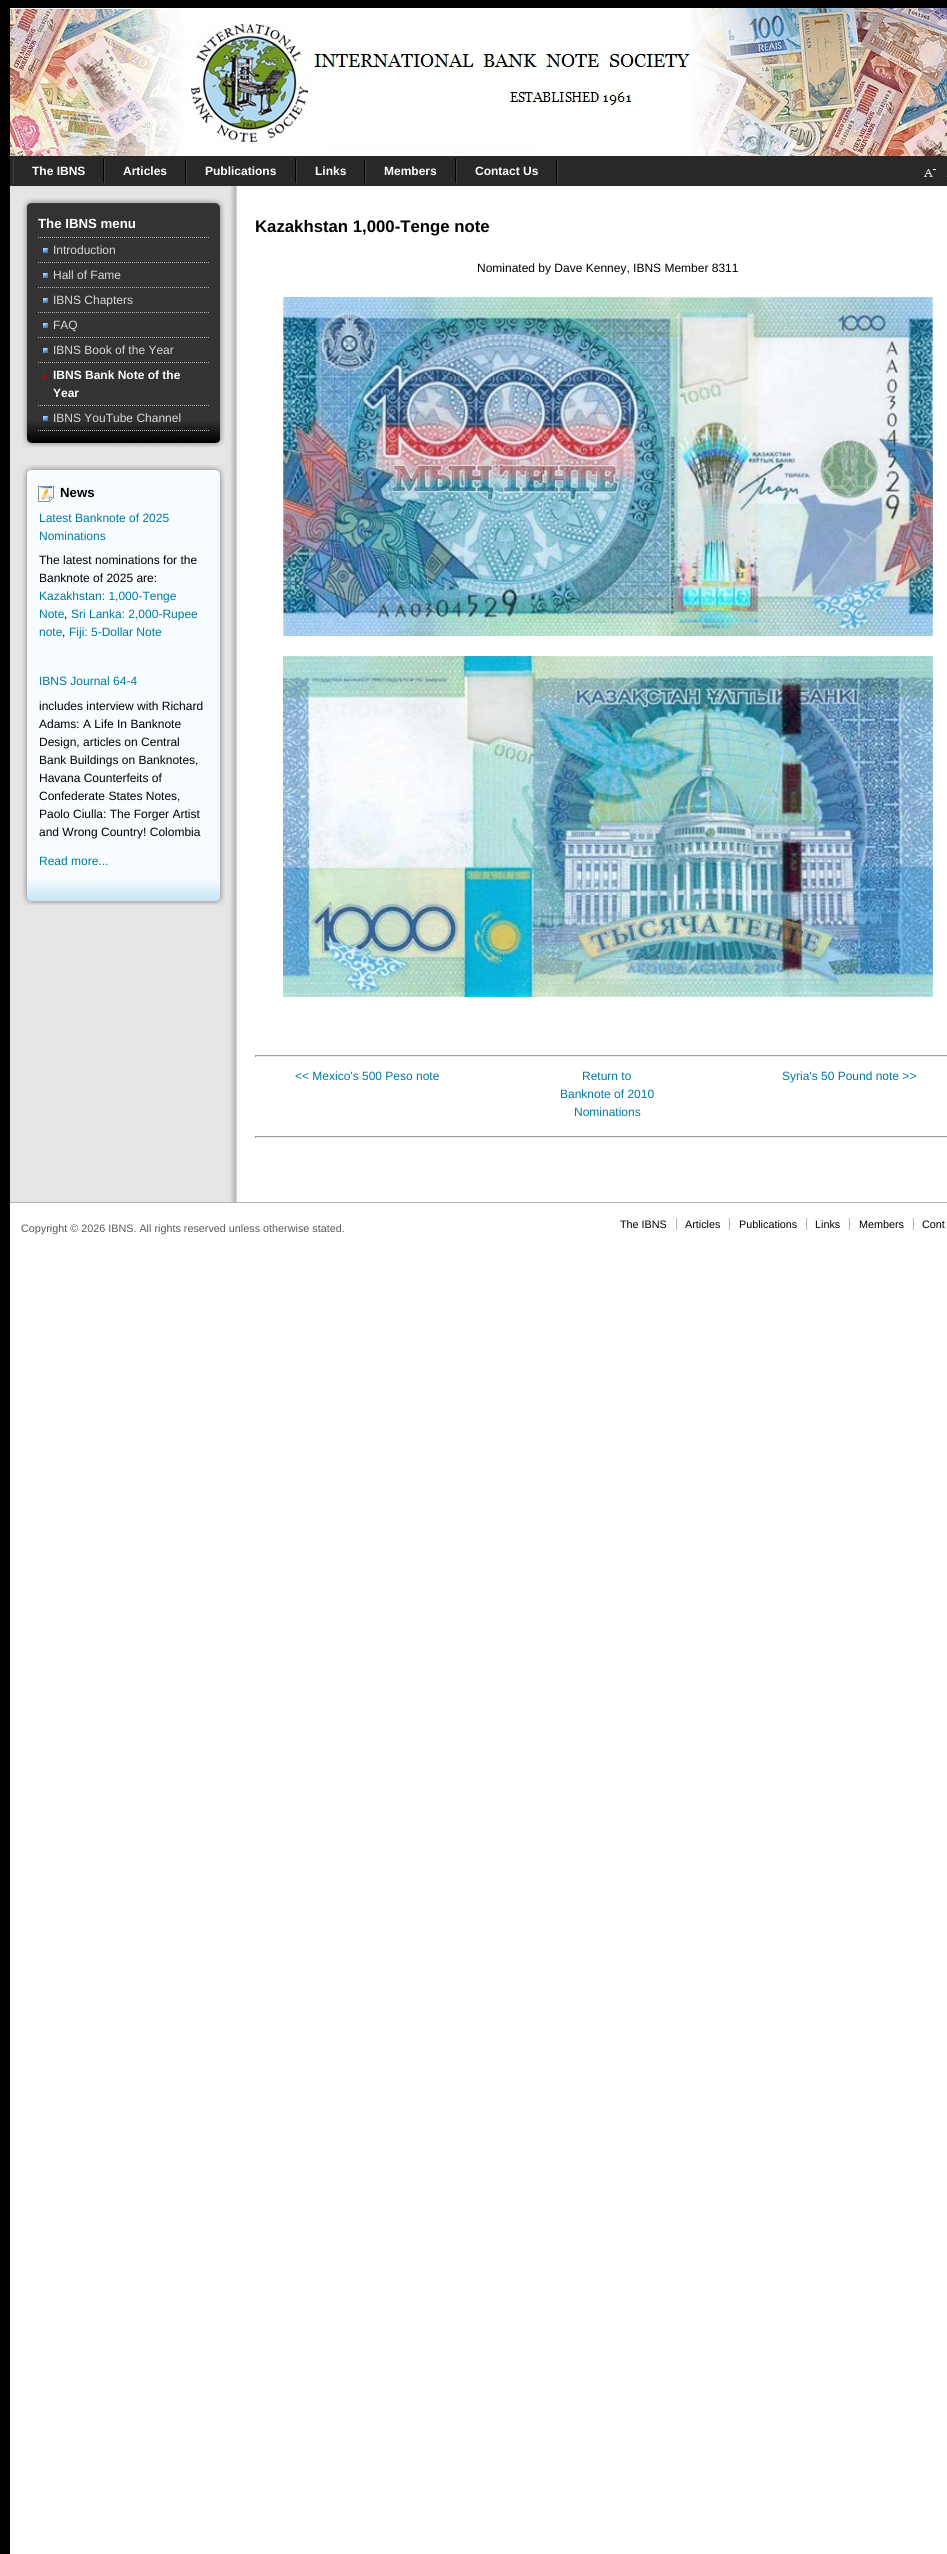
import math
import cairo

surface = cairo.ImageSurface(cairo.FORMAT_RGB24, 947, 2554)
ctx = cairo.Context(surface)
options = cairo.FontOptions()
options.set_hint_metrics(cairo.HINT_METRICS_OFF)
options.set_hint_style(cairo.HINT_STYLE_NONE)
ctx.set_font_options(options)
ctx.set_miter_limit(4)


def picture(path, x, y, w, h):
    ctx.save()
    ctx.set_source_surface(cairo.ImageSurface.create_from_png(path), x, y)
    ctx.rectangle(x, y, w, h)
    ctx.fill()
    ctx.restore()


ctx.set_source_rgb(0, 0, 0)
ctx.paint()
ctx.set_source_rgb(1, 1, 1)
ctx.rectangle(10, 186, 937, 2368)
ctx.fill()
picture("img1.png", 10, 8, 937, 148)
ctx.set_source_rgb(0.157, 0.157, 0.157)
ctx.rectangle(10, 156, 937, 30)
ctx.fill()
ctx.set_source_rgb(0.251, 0.251, 0.251)
ctx.rectangle(557, 159, 1, 24)
ctx.fill()
ctx.set_source_rgb(0, 0, 0)
ctx.rectangle(103, 159, 1, 24)
ctx.fill()
ctx.set_source_rgb(0.251, 0.251, 0.251)
ctx.rectangle(13, 159, 1, 24)
ctx.fill()
ctx.select_font_face("Liberation Sans", cairo.FONT_SLANT_NORMAL, cairo.FONT_WEIGHT_BOLD)
ctx.set_font_size(12)
ctx.set_source_rgb(1, 1, 1)
ctx.move_to(32, 175)
ctx.show_text("The IBNS")
ctx.set_source_rgb(0, 0, 0)
ctx.rectangle(185, 159, 1, 24)
ctx.fill()
ctx.set_source_rgb(0.251, 0.251, 0.251)
ctx.rectangle(104, 159, 1, 24)
ctx.fill()
ctx.set_source_rgb(1, 1, 1)
ctx.move_to(123, 175)
ctx.show_text("Articles")
ctx.set_source_rgb(0, 0, 0)
ctx.rectangle(295, 159, 1, 24)
ctx.fill()
ctx.set_source_rgb(0.251, 0.251, 0.251)
ctx.rectangle(186, 159, 1, 24)
ctx.fill()
ctx.set_source_rgb(1, 1, 1)
ctx.move_to(205, 175)
ctx.show_text("Publications")
ctx.set_source_rgb(0, 0, 0)
ctx.rectangle(364, 159, 1, 24)
ctx.fill()
ctx.set_source_rgb(0.251, 0.251, 0.251)
ctx.rectangle(296, 159, 1, 24)
ctx.fill()
ctx.set_source_rgb(1, 1, 1)
ctx.move_to(315, 175)
ctx.show_text("Links")
ctx.set_source_rgb(0, 0, 0)
ctx.rectangle(455, 159, 1, 24)
ctx.fill()
ctx.set_source_rgb(0.251, 0.251, 0.251)
ctx.rectangle(365, 159, 1, 24)
ctx.fill()
ctx.set_source_rgb(1, 1, 1)
ctx.move_to(384, 175)
ctx.show_text("Members")
ctx.set_source_rgb(0, 0, 0)
ctx.rectangle(556, 159, 1, 24)
ctx.fill()
ctx.set_source_rgb(0.251, 0.251, 0.251)
ctx.rectangle(456, 159, 1, 24)
ctx.fill()
ctx.set_source_rgb(1, 1, 1)
ctx.move_to(475, 175)
ctx.show_text("Contact Us")
picture("img2.png", 923, 169, 13, 8)
ctx.set_source_rgb(0.325, 0.325, 0.325)
ctx.rectangle(946, 176, 1, 1)
ctx.fill()
ctx.set_source_rgb(0.702, 0.702, 0.702)
ctx.rectangle(10, 1202, 937, 1)
ctx.fill()
picture("img3.png", 10, 186, 227, 1016)
picture("img4.png", 32, 198, 193, 223)
picture("img5.png", 22, 198, 10, 223)
picture("img6.png", 22, 421, 20, 26)
picture("img7.png", 42, 421, 183, 26)
ctx.set_font_size(13.25)
ctx.set_source_rgb(1, 1, 1)
ctx.move_to(38, 228)
ctx.show_text("The IBNS menu")
ctx.new_path()
ctx.move_to(38, 237.5)
ctx.line_to(209, 237.5)
ctx.set_source_rgb(0.702, 0.702, 0.702)
ctx.set_line_width(1)
ctx.set_dash([1, 1])
ctx.stroke()
picture("img8.png", 43, 248, 5, 5)
ctx.new_path()
ctx.move_to(38, 262.5)
ctx.line_to(209, 262.5)
ctx.stroke()
ctx.select_font_face("Liberation Sans")
ctx.set_font_size(12)
ctx.set_source_rgb(0.851, 0.851, 0.851)
ctx.move_to(53, 254)
ctx.show_text("Introduction")
picture("img8.png", 43, 273, 5, 5)
ctx.new_path()
ctx.move_to(38, 287.5)
ctx.line_to(209, 287.5)
ctx.set_source_rgb(0.702, 0.702, 0.702)
ctx.stroke()
ctx.set_source_rgb(0.851, 0.851, 0.851)
ctx.move_to(53, 279)
ctx.show_text("Hall of Fame")
picture("img8.png", 43, 298, 5, 5)
ctx.new_path()
ctx.move_to(38, 312.5)
ctx.line_to(209, 312.5)
ctx.set_source_rgb(0.702, 0.702, 0.702)
ctx.stroke()
ctx.set_source_rgb(0.851, 0.851, 0.851)
ctx.move_to(53, 304)
ctx.show_text("IBNS Chapters")
picture("img8.png", 43, 323, 5, 5)
ctx.new_path()
ctx.move_to(38, 337.5)
ctx.line_to(209, 337.5)
ctx.set_source_rgb(0.702, 0.702, 0.702)
ctx.stroke()
ctx.set_source_rgb(0.851, 0.851, 0.851)
ctx.move_to(53, 329)
ctx.show_text("FAQ")
picture("img8.png", 43, 348, 5, 5)
ctx.new_path()
ctx.move_to(38, 362.5)
ctx.line_to(209, 362.5)
ctx.set_source_rgb(0.702, 0.702, 0.702)
ctx.stroke()
ctx.set_source_rgb(0.851, 0.851, 0.851)
ctx.move_to(53, 354)
ctx.show_text("IBNS Book of the Year")
picture("img9.png", 43, 373, 4, 7)
ctx.new_path()
ctx.move_to(38, 405.5)
ctx.line_to(209, 405.5)
ctx.set_source_rgb(0.702, 0.702, 0.702)
ctx.stroke()
ctx.select_font_face("Liberation Sans", cairo.FONT_SLANT_NORMAL, cairo.FONT_WEIGHT_BOLD)
ctx.set_source_rgb(1, 1, 1)
ctx.move_to(53, 379)
ctx.show_text("IBNS Bank Note of the")
ctx.move_to(53, 397)
ctx.show_text("Year")
picture("img8.png", 43, 416, 5, 5)
ctx.new_path()
ctx.move_to(38, 430.5)
ctx.line_to(209, 430.5)
ctx.set_source_rgb(0.702, 0.702, 0.702)
ctx.stroke()
ctx.select_font_face("Liberation Sans")
ctx.set_source_rgb(0.851, 0.851, 0.851)
ctx.move_to(53, 422)
ctx.show_text("IBNS YouTube Channel")
picture("img10.png", 32, 465, 193, 414)
picture("img11.png", 22, 465, 10, 414)
picture("img12.png", 22, 879, 20, 26)
picture("img13.png", 42, 879, 183, 26)
picture("img14.png", 38, 486, 16, 16)
ctx.select_font_face("Liberation Sans", cairo.FONT_SLANT_NORMAL, cairo.FONT_WEIGHT_BOLD)
ctx.set_font_size(13.25)
ctx.set_source_rgb(0, 0, 0)
ctx.move_to(60, 497)
ctx.show_text("News")
ctx.select_font_face("Liberation Sans")
ctx.set_font_size(12)
ctx.set_source_rgb(0, 0.471, 0.624)
ctx.move_to(39, 522)
ctx.show_text("Latest Banknote of 2025")
ctx.move_to(39, 540)
ctx.show_text("Nominations")
ctx.set_source_rgb(0, 0, 0)
ctx.move_to(39, 564)
ctx.show_text("The latest nominations for the")
ctx.move_to(39, 582)
ctx.show_text("Banknote of 2025 are:")
ctx.set_source_rgb(0, 0.471, 0.624)
ctx.move_to(39, 600)
ctx.show_text("Kazakhstan: 1,000-Tenge")
ctx.move_to(39, 618)
ctx.show_text("Note")
ctx.set_source_rgb(0, 0, 0)
ctx.move_to(64, 618)
ctx.show_text(",")
ctx.set_source_rgb(0, 0.471, 0.624)
ctx.move_to(71, 618)
ctx.show_text("Sri Lanka: 2,000-Rupee")
ctx.move_to(39, 636)
ctx.show_text("note")
ctx.set_source_rgb(0, 0, 0)
ctx.move_to(62, 636)
ctx.show_text(",")
ctx.set_source_rgb(0, 0.471, 0.624)
ctx.move_to(69, 636)
ctx.show_text("Fiji: 5-Dollar Note")
ctx.move_to(39, 685)
ctx.show_text("IBNS Journal 64-4")
ctx.set_source_rgb(0, 0, 0)
ctx.move_to(39, 710)
ctx.show_text("includes interview with Richard")
ctx.move_to(39, 728)
ctx.show_text("Adams: A Life In Banknote")
ctx.move_to(39, 746)
ctx.show_text("Design, articles on Central")
ctx.move_to(39, 764)
ctx.show_text("Bank Buildings on Banknotes,")
ctx.move_to(39, 782)
ctx.show_text("Havana Counterfeits of")
ctx.move_to(39, 800)
ctx.show_text("Confederate States Notes,")
ctx.move_to(39, 818)
ctx.show_text("Paolo Ciulla: The Forger Artist")
ctx.move_to(39, 836)
ctx.show_text("and Wrong Country! Colombia")
ctx.set_source_rgb(0, 0.471, 0.624)
ctx.move_to(39, 865)
ctx.show_text("Read more...")
ctx.select_font_face("Liberation Sans", cairo.FONT_SLANT_NORMAL, cairo.FONT_WEIGHT_BOLD)
ctx.set_font_size(16.75)
ctx.set_source_rgb(0, 0, 0)
ctx.move_to(255, 232)
ctx.show_text("Kazakhstan 1,000-Tenge note")
ctx.select_font_face("Liberation Sans")
ctx.set_font_size(12)
ctx.move_to(477, 272)
ctx.show_text("Nominated by Dave Kenney, IBNS Member 8311")
picture("img15.png", 283, 297, 650, 339)
picture("img16.png", 283, 656, 650, 341)
ctx.set_source_rgb(0.624, 0.624, 0.624)
ctx.rectangle(255, 1055, 692, 1)
ctx.fill()
ctx.set_source_rgb(0.933, 0.933, 0.933)
ctx.rectangle(255, 1056, 692, 1)
ctx.fill()
ctx.set_source_rgb(0.624, 0.624, 0.624)
ctx.rectangle(255, 1055, 1, 2)
ctx.fill()
ctx.set_source_rgb(0, 0.471, 0.624)
ctx.move_to(295, 1080)
ctx.show_text("<< Mexico's 500 Peso note")
ctx.move_to(582, 1080)
ctx.show_text("Return to")
ctx.move_to(560, 1098)
ctx.show_text("Banknote of 2010")
ctx.move_to(574, 1116)
ctx.show_text("Nominations")
ctx.move_to(782, 1080)
ctx.show_text("Syria's 50 Pound note >>")
ctx.set_source_rgb(0.624, 0.624, 0.624)
ctx.rectangle(255, 1136, 692, 1)
ctx.fill()
ctx.set_source_rgb(0.933, 0.933, 0.933)
ctx.rectangle(255, 1137, 692, 1)
ctx.fill()
ctx.set_source_rgb(0.624, 0.624, 0.624)
ctx.rectangle(255, 1136, 1, 2)
ctx.fill()
ctx.set_font_size(10.8)
ctx.set_source_rgb(0.349, 0.349, 0.349)
ctx.move_to(21, 1232)
ctx.show_text("Copyright © 2026 IBNS. All rights reserved unless otherwise stated.")
ctx.set_source_rgb(0, 0, 0)
ctx.move_to(620, 1228)
ctx.show_text("The IBNS")
ctx.move_to(685, 1228)
ctx.show_text("Articles")
ctx.set_source_rgb(0.702, 0.702, 0.702)
ctx.rectangle(676, 1218, 1, 12)
ctx.fill()
ctx.set_source_rgb(0, 0, 0)
ctx.move_to(739, 1228)
ctx.show_text("Publications")
ctx.set_source_rgb(0.702, 0.702, 0.702)
ctx.rectangle(729, 1218, 1, 12)
ctx.fill()
ctx.set_source_rgb(0, 0, 0)
ctx.move_to(815, 1228)
ctx.show_text("Links")
ctx.set_source_rgb(0.702, 0.702, 0.702)
ctx.rectangle(806, 1218, 1, 12)
ctx.fill()
ctx.set_source_rgb(0, 0, 0)
ctx.move_to(859, 1228)
ctx.show_text("Members")
ctx.set_source_rgb(0.702, 0.702, 0.702)
ctx.rectangle(849, 1218, 1, 12)
ctx.fill()
ctx.set_source_rgb(0, 0, 0)
ctx.move_to(922, 1228)
ctx.show_text("Cont")
ctx.set_source_rgb(0.702, 0.702, 0.702)
ctx.rectangle(913, 1218, 1, 12)
ctx.fill()
surface.write_to_png("page.png")
